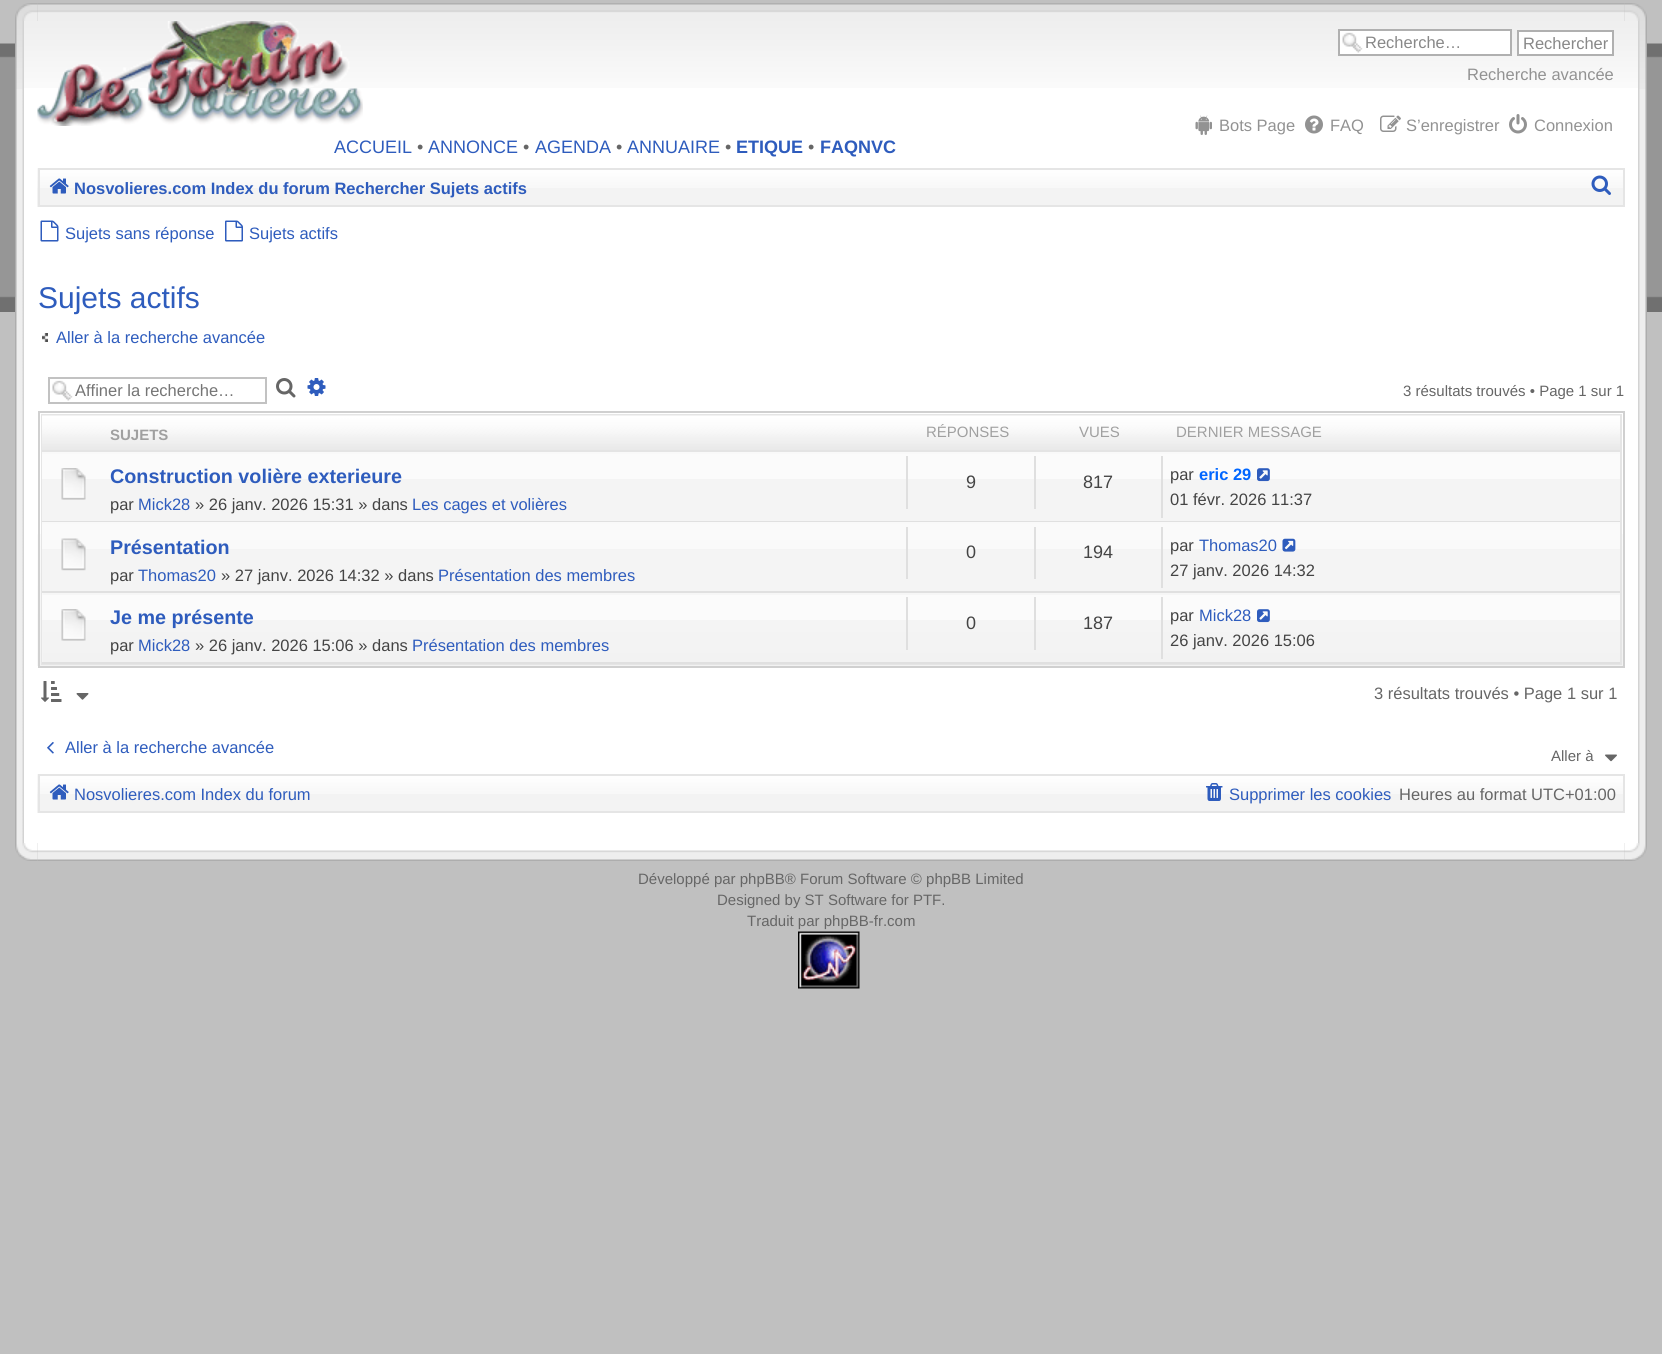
import math
import cairo

surface = cairo.ImageSurface(cairo.FORMAT_RGB24, 1662, 1354)
ctx = cairo.Context(surface)
options = cairo.FontOptions()
options.set_hint_metrics(cairo.HINT_METRICS_OFF)
options.set_hint_style(cairo.HINT_STYLE_NONE)
ctx.set_font_options(options)
ctx.set_miter_limit(4)


def picture(path, x, y, w, h):
    ctx.save()
    ctx.set_source_surface(cairo.ImageSurface.create_from_png(path), x, y)
    ctx.rectangle(x, y, w, h)
    ctx.fill()
    ctx.restore()


ctx.set_source_rgb(0.753, 0.753, 0.753)
ctx.paint()
picture("img1.png", 0, 43, 1662, 269)
picture("img2.png", 15, 3, 23, 18)
picture("img3.png", 1624, 3, 23, 18)
picture("img4.png", 37, 3, 1588, 18)
picture("img5.png", 15, 21, 9, 822)
picture("img6.png", 1638, 21, 9, 822)
picture("img7.png", 16, 21, 7, 68)
picture("img8.png", 1639, 21, 7, 68)
ctx.set_source_rgb(1, 1, 1)
ctx.rectangle(24, 88, 1614, 755)
ctx.fill()
picture("img9.png", 24, 21, 1614, 67)
picture("img10.png", 37, 21, 326, 105)
ctx.rectangle(1340, 31, 170, 23)
ctx.fill()
picture("img11.png", 1342, 32, 21, 21)
ctx.rectangle(1339, 30, 172, 25)
ctx.set_source_rgb(0.69, 0.69, 0.69)
ctx.stroke()
ctx.select_font_face("Liberation Sans")
ctx.set_font_size(16.5)
ctx.set_source_rgb(0.533, 0.533, 0.533)
ctx.move_to(1365, 48)
ctx.show_text("Recherche…")
ctx.set_source_rgb(1, 1, 1)
ctx.rectangle(1518, 31, 95, 24)
ctx.fill_preserve()
ctx.set_source_rgb(0.69, 0.69, 0.69)
ctx.stroke()
ctx.set_source_rgb(0.533, 0.533, 0.533)
ctx.move_to(1523, 49)
ctx.show_text("Rechercher")
ctx.set_source_rgb(0.573, 0.573, 0.573)
ctx.move_to(1467, 80)
ctx.show_text("Recherche avancée")
picture("img12.png", 1195, 115, 17, 20)
ctx.move_to(1219, 131)
ctx.show_text("Bots Page")
picture("img13.png", 1305, 115, 18, 19)
ctx.move_to(1330, 131)
ctx.show_text("FAQ")
picture("img14.png", 1380, 115, 21, 17)
ctx.move_to(1406, 131)
ctx.show_text("S’enregistrer")
picture("img15.png", 1509, 114, 18, 20)
ctx.move_to(1534, 131)
ctx.show_text("Connexion")
ctx.set_font_size(18)
ctx.set_source_rgb(0.18, 0.361, 0.741)
ctx.move_to(334, 153)
ctx.show_text("ACCUEIL")
ctx.set_source_rgb(0.4, 0.4, 0.4)
ctx.move_to(417, 153)
ctx.show_text("•")
ctx.set_source_rgb(0.18, 0.361, 0.741)
ctx.move_to(428, 153)
ctx.show_text("ANNONCE")
ctx.set_source_rgb(0.4, 0.4, 0.4)
ctx.move_to(523, 153)
ctx.show_text("•")
ctx.set_source_rgb(0.18, 0.361, 0.741)
ctx.move_to(535, 153)
ctx.show_text("AGENDA")
ctx.set_source_rgb(0.4, 0.4, 0.4)
ctx.move_to(616, 153)
ctx.show_text("•")
ctx.set_source_rgb(0.18, 0.361, 0.741)
ctx.move_to(627, 153)
ctx.show_text("ANNUAIRE")
ctx.set_source_rgb(0.4, 0.4, 0.4)
ctx.move_to(725, 153)
ctx.show_text("•")
ctx.select_font_face("Liberation Sans", cairo.FONT_SLANT_NORMAL, cairo.FONT_WEIGHT_BOLD)
ctx.set_source_rgb(0.18, 0.361, 0.741)
ctx.move_to(736, 153)
ctx.show_text("ETIQUE")
ctx.select_font_face("Liberation Sans")
ctx.set_source_rgb(0.4, 0.4, 0.4)
ctx.move_to(808, 153)
ctx.show_text("•")
ctx.select_font_face("Liberation Sans", cairo.FONT_SLANT_NORMAL, cairo.FONT_WEIGHT_BOLD)
ctx.set_source_rgb(0.18, 0.361, 0.741)
ctx.move_to(820, 153)
ctx.show_text("FAQNVC")
ctx.set_source_rgb(0.953, 0.953, 0.953)
ctx.rectangle(37, 168, 1586, 39)
ctx.fill()
picture("img16.png", 37, 168, 1586, 20)
ctx.rectangle(39, 169, 1585, 37)
ctx.set_source_rgb(0.898, 0.898, 0.898)
ctx.stroke()
picture("img17.png", 49, 178, 20, 16)
ctx.set_font_size(16.5)
ctx.set_source_rgb(0.18, 0.361, 0.741)
ctx.move_to(74, 194)
ctx.show_text("Nosvolieres.com Index du forum Rechercher Sujets actifs")
picture("img18.png", 1591, 175, 20, 20)
picture("img19.png", 40, 220, 19, 22)
ctx.select_font_face("Liberation Sans")
ctx.move_to(65, 239)
ctx.show_text("Sujets sans réponse")
picture("img20.png", 225, 220, 18, 22)
ctx.move_to(249, 239)
ctx.show_text("Sujets actifs")
ctx.set_font_size(30)
ctx.move_to(38, 308)
ctx.show_text("Sujets actifs")
picture("img21.png", 42, 333, 6, 9)
ctx.set_font_size(16.5)
ctx.move_to(56, 343)
ctx.show_text("Aller à la recherche avancée")
picture("img22.png", 52, 380, 21, 21)
ctx.rectangle(49, 378, 217, 25)
ctx.set_source_rgb(0.761, 0.761, 0.761)
ctx.stroke()
ctx.set_source_rgb(0.459, 0.459, 0.459)
ctx.move_to(75, 396)
ctx.show_text("Affiner la recherche…")
picture("img23.png", 276, 378, 20, 20)
picture("img24.png", 307, 378, 19, 18)
ctx.set_font_size(15)
ctx.set_source_rgb(0.4, 0.4, 0.4)
ctx.move_to(1403, 396)
ctx.show_text("3 résultats trouvés • Page 1 sur 1")
picture("img25.png", 37, 534, 1586, 132)
ctx.rectangle(39, 412, 1585, 255)
ctx.set_source_rgb(0.816, 0.816, 0.816)
ctx.stroke()
ctx.rectangle(42, 415, 1579, 249)
ctx.set_source_rgb(0.898, 0.898, 0.898)
ctx.stroke()
ctx.set_source_rgb(0.894, 0.894, 0.894)
ctx.rectangle(42, 450, 1578, 2)
ctx.fill()
picture("img26.png", 42, 415, 1578, 35)
ctx.select_font_face("Liberation Sans", cairo.FONT_SLANT_NORMAL, cairo.FONT_WEIGHT_BOLD)
ctx.set_source_rgb(0.627, 0.627, 0.627)
ctx.move_to(110, 440)
ctx.show_text("SUJETS")
ctx.select_font_face("Liberation Sans")
ctx.move_to(926, 437)
ctx.show_text("RÉPONSES")
ctx.move_to(1079, 437)
ctx.show_text("VUES")
ctx.move_to(1176, 437)
ctx.show_text("DERNIER MESSAGE")
ctx.set_source_rgb(0.957, 0.957, 0.957)
ctx.rectangle(42, 479, 1578, 42)
ctx.fill()
ctx.set_source_rgb(0.984, 0.984, 0.984)
ctx.rectangle(42, 454, 1578, 25)
ctx.fill()
ctx.set_source_rgb(0.973, 0.973, 0.973)
ctx.rectangle(42, 452, 1578, 2)
ctx.fill()
ctx.set_source_rgb(0.878, 0.878, 0.878)
ctx.rectangle(42, 521, 1578, 1)
ctx.fill()
picture("img27.png", 61, 468, 25, 32)
ctx.select_font_face("Liberation Sans", cairo.FONT_SLANT_NORMAL, cairo.FONT_WEIGHT_BOLD)
ctx.set_font_size(19.75)
ctx.set_source_rgb(0.18, 0.361, 0.741)
ctx.move_to(110, 483)
ctx.show_text("Construction volière exterieure")
ctx.select_font_face("Liberation Sans")
ctx.set_font_size(16.5)
ctx.set_source_rgb(0.267, 0.267, 0.267)
ctx.move_to(110, 510)
ctx.show_text("par")
ctx.set_source_rgb(0.18, 0.361, 0.741)
ctx.move_to(138, 510)
ctx.show_text("Mick28")
ctx.set_source_rgb(0.267, 0.267, 0.267)
ctx.move_to(195, 510)
ctx.show_text("» 26 janv. 2026 15:31 » dans")
ctx.set_source_rgb(0.18, 0.361, 0.741)
ctx.move_to(412, 510)
ctx.show_text("Les cages et volières")
ctx.set_source_rgb(0.875, 0.875, 0.875)
ctx.rectangle(906, 456, 2, 53)
ctx.fill()
ctx.set_font_size(18)
ctx.set_source_rgb(0.267, 0.267, 0.267)
ctx.move_to(966, 488)
ctx.show_text("9")
ctx.set_source_rgb(0.875, 0.875, 0.875)
ctx.rectangle(1034, 456, 2, 53)
ctx.fill()
ctx.set_source_rgb(0.267, 0.267, 0.267)
ctx.move_to(1083, 488)
ctx.show_text("817")
ctx.set_source_rgb(0.875, 0.875, 0.875)
ctx.rectangle(1161, 456, 2, 62)
ctx.fill()
ctx.set_font_size(16.5)
ctx.set_source_rgb(0.267, 0.267, 0.267)
ctx.move_to(1170, 480)
ctx.show_text("par")
ctx.select_font_face("Liberation Sans", cairo.FONT_SLANT_NORMAL, cairo.FONT_WEIGHT_BOLD)
ctx.set_source_rgb(0, 0.4, 1)
ctx.move_to(1199, 480)
ctx.show_text("eric 29")
picture("img28.png", 1257, 468, 13, 14)
ctx.select_font_face("Liberation Sans")
ctx.set_source_rgb(0.267, 0.267, 0.267)
ctx.move_to(1170, 505)
ctx.show_text("01 févr. 2026 11:37")
ctx.set_source_rgb(0.957, 0.957, 0.957)
ctx.rectangle(42, 549, 1578, 42)
ctx.fill()
ctx.set_source_rgb(0.98, 0.98, 0.98)
ctx.rectangle(42, 524, 1578, 25)
ctx.fill()
ctx.set_source_rgb(0.973, 0.973, 0.973)
ctx.rectangle(42, 522, 1578, 2)
ctx.fill()
ctx.set_source_rgb(0.878, 0.878, 0.878)
ctx.rectangle(42, 591, 1578, 2)
ctx.fill()
picture("img29.png", 61, 538, 25, 33)
ctx.select_font_face("Liberation Sans", cairo.FONT_SLANT_NORMAL, cairo.FONT_WEIGHT_BOLD)
ctx.set_font_size(19.75)
ctx.set_source_rgb(0.18, 0.361, 0.741)
ctx.move_to(110, 554)
ctx.show_text("Présentation")
ctx.select_font_face("Liberation Sans")
ctx.set_font_size(16.5)
ctx.set_source_rgb(0.267, 0.267, 0.267)
ctx.move_to(110, 581)
ctx.show_text("par")
ctx.set_source_rgb(0.18, 0.361, 0.741)
ctx.move_to(138, 581)
ctx.show_text("Thomas20")
ctx.set_source_rgb(0.267, 0.267, 0.267)
ctx.move_to(221, 581)
ctx.show_text("» 27 janv. 2026 14:32 » dans")
ctx.set_source_rgb(0.18, 0.361, 0.741)
ctx.move_to(438, 581)
ctx.show_text("Présentation des membres")
ctx.set_source_rgb(0.875, 0.875, 0.875)
ctx.rectangle(906, 527, 2, 52)
ctx.fill()
ctx.set_font_size(18)
ctx.set_source_rgb(0.267, 0.267, 0.267)
ctx.move_to(966, 558)
ctx.show_text("0")
ctx.set_source_rgb(0.875, 0.875, 0.875)
ctx.rectangle(1034, 527, 2, 52)
ctx.fill()
ctx.set_source_rgb(0.267, 0.267, 0.267)
ctx.move_to(1083, 558)
ctx.show_text("194")
ctx.set_source_rgb(0.875, 0.875, 0.875)
ctx.rectangle(1161, 527, 2, 61)
ctx.fill()
ctx.set_font_size(16.5)
ctx.set_source_rgb(0.267, 0.267, 0.267)
ctx.move_to(1170, 551)
ctx.show_text("par")
ctx.set_source_rgb(0.18, 0.361, 0.741)
ctx.move_to(1199, 551)
ctx.show_text("Thomas20")
picture("img30.png", 1282, 538, 14, 14)
ctx.set_source_rgb(0.267, 0.267, 0.267)
ctx.move_to(1170, 576)
ctx.show_text("27 janv. 2026 14:32")
ctx.set_source_rgb(0.957, 0.957, 0.957)
ctx.rectangle(42, 620, 1, 42)
ctx.fill()
ctx.set_source_rgb(0.984, 0.984, 0.984)
ctx.rectangle(42, 595, 1578, 25)
ctx.fill()
ctx.set_source_rgb(0.973, 0.973, 0.973)
ctx.rectangle(42, 593, 1, 2)
ctx.fill()
ctx.set_source_rgb(0.878, 0.878, 0.878)
ctx.rectangle(42, 662, 1578, 2)
ctx.fill()
picture("img27.png", 61, 609, 25, 32)
ctx.select_font_face("Liberation Sans", cairo.FONT_SLANT_NORMAL, cairo.FONT_WEIGHT_BOLD)
ctx.set_font_size(19.75)
ctx.set_source_rgb(0.18, 0.361, 0.741)
ctx.move_to(110, 624)
ctx.show_text("Je me présente")
ctx.select_font_face("Liberation Sans")
ctx.set_font_size(16.5)
ctx.set_source_rgb(0.267, 0.267, 0.267)
ctx.move_to(110, 651)
ctx.show_text("par")
ctx.set_source_rgb(0.18, 0.361, 0.741)
ctx.move_to(138, 651)
ctx.show_text("Mick28")
ctx.set_source_rgb(0.267, 0.267, 0.267)
ctx.move_to(195, 651)
ctx.show_text("» 26 janv. 2026 15:06 » dans")
ctx.set_source_rgb(0.18, 0.361, 0.741)
ctx.move_to(412, 651)
ctx.show_text("Présentation des membres")
ctx.set_source_rgb(0.875, 0.875, 0.875)
ctx.rectangle(906, 597, 2, 53)
ctx.fill()
ctx.set_font_size(18)
ctx.set_source_rgb(0.267, 0.267, 0.267)
ctx.move_to(966, 629)
ctx.show_text("0")
ctx.set_source_rgb(0.875, 0.875, 0.875)
ctx.rectangle(1034, 597, 2, 53)
ctx.fill()
ctx.set_source_rgb(0.267, 0.267, 0.267)
ctx.move_to(1083, 629)
ctx.show_text("187")
ctx.set_source_rgb(0.875, 0.875, 0.875)
ctx.rectangle(1161, 597, 2, 62)
ctx.fill()
ctx.set_font_size(16.5)
ctx.set_source_rgb(0.267, 0.267, 0.267)
ctx.move_to(1170, 621)
ctx.show_text("par")
ctx.set_source_rgb(0.18, 0.361, 0.741)
ctx.move_to(1199, 621)
ctx.show_text("Mick28")
picture("img28.png", 1257, 609, 13, 14)
ctx.set_source_rgb(0.267, 0.267, 0.267)
ctx.move_to(1170, 646)
ctx.show_text("26 janv. 2026 15:06")
picture("img31.png", 41, 681, 21, 21)
picture("img32.png", 76, 693, 13, 7)
ctx.set_source_rgb(0.4, 0.4, 0.4)
ctx.move_to(1374, 699)
ctx.show_text("3 résultats trouvés • Page 1 sur 1")
picture("img33.png", 47, 742, 7, 12)
ctx.set_source_rgb(0.18, 0.361, 0.741)
ctx.move_to(65, 753)
ctx.show_text("Aller à la recherche avancée")
ctx.set_font_size(15)
ctx.set_source_rgb(0.4, 0.4, 0.4)
ctx.move_to(1551, 761)
ctx.show_text("Aller à")
picture("img34.png", 1605, 754, 12, 8)
ctx.set_source_rgb(0.953, 0.953, 0.953)
ctx.rectangle(37, 774, 1586, 39)
ctx.fill()
picture("img16.png", 37, 774, 1586, 20)
ctx.rectangle(39, 775, 1585, 37)
ctx.set_source_rgb(0.898, 0.898, 0.898)
ctx.stroke()
picture("img17.png", 49, 784, 20, 16)
ctx.set_font_size(16.5)
ctx.set_source_rgb(0.18, 0.361, 0.741)
ctx.move_to(74, 800)
ctx.show_text("Nosvolieres.com Index du forum")
picture("img35.png", 1206, 783, 17, 18)
ctx.move_to(1229, 800)
ctx.show_text("Supprimer les cookies")
ctx.set_source_rgb(0.4, 0.4, 0.4)
ctx.move_to(1399, 800)
ctx.show_text("Heures au format UTC+01:00")
picture("img36.png", 15, 843, 23, 18)
picture("img37.png", 1624, 843, 23, 18)
picture("img38.png", 37, 843, 1588, 18)
ctx.set_font_size(15)
ctx.move_to(638, 884)
ctx.show_text("Développé par phpBB® Forum Software © phpBB Limited")
ctx.move_to(717, 905)
ctx.show_text("Designed by ST Software for PTF.")
ctx.move_to(747, 926)
ctx.show_text("Traduit par phpBB-fr.com")
picture("img39.png", 798, 931, 62, 58)
surface.write_to_png("page.png")
